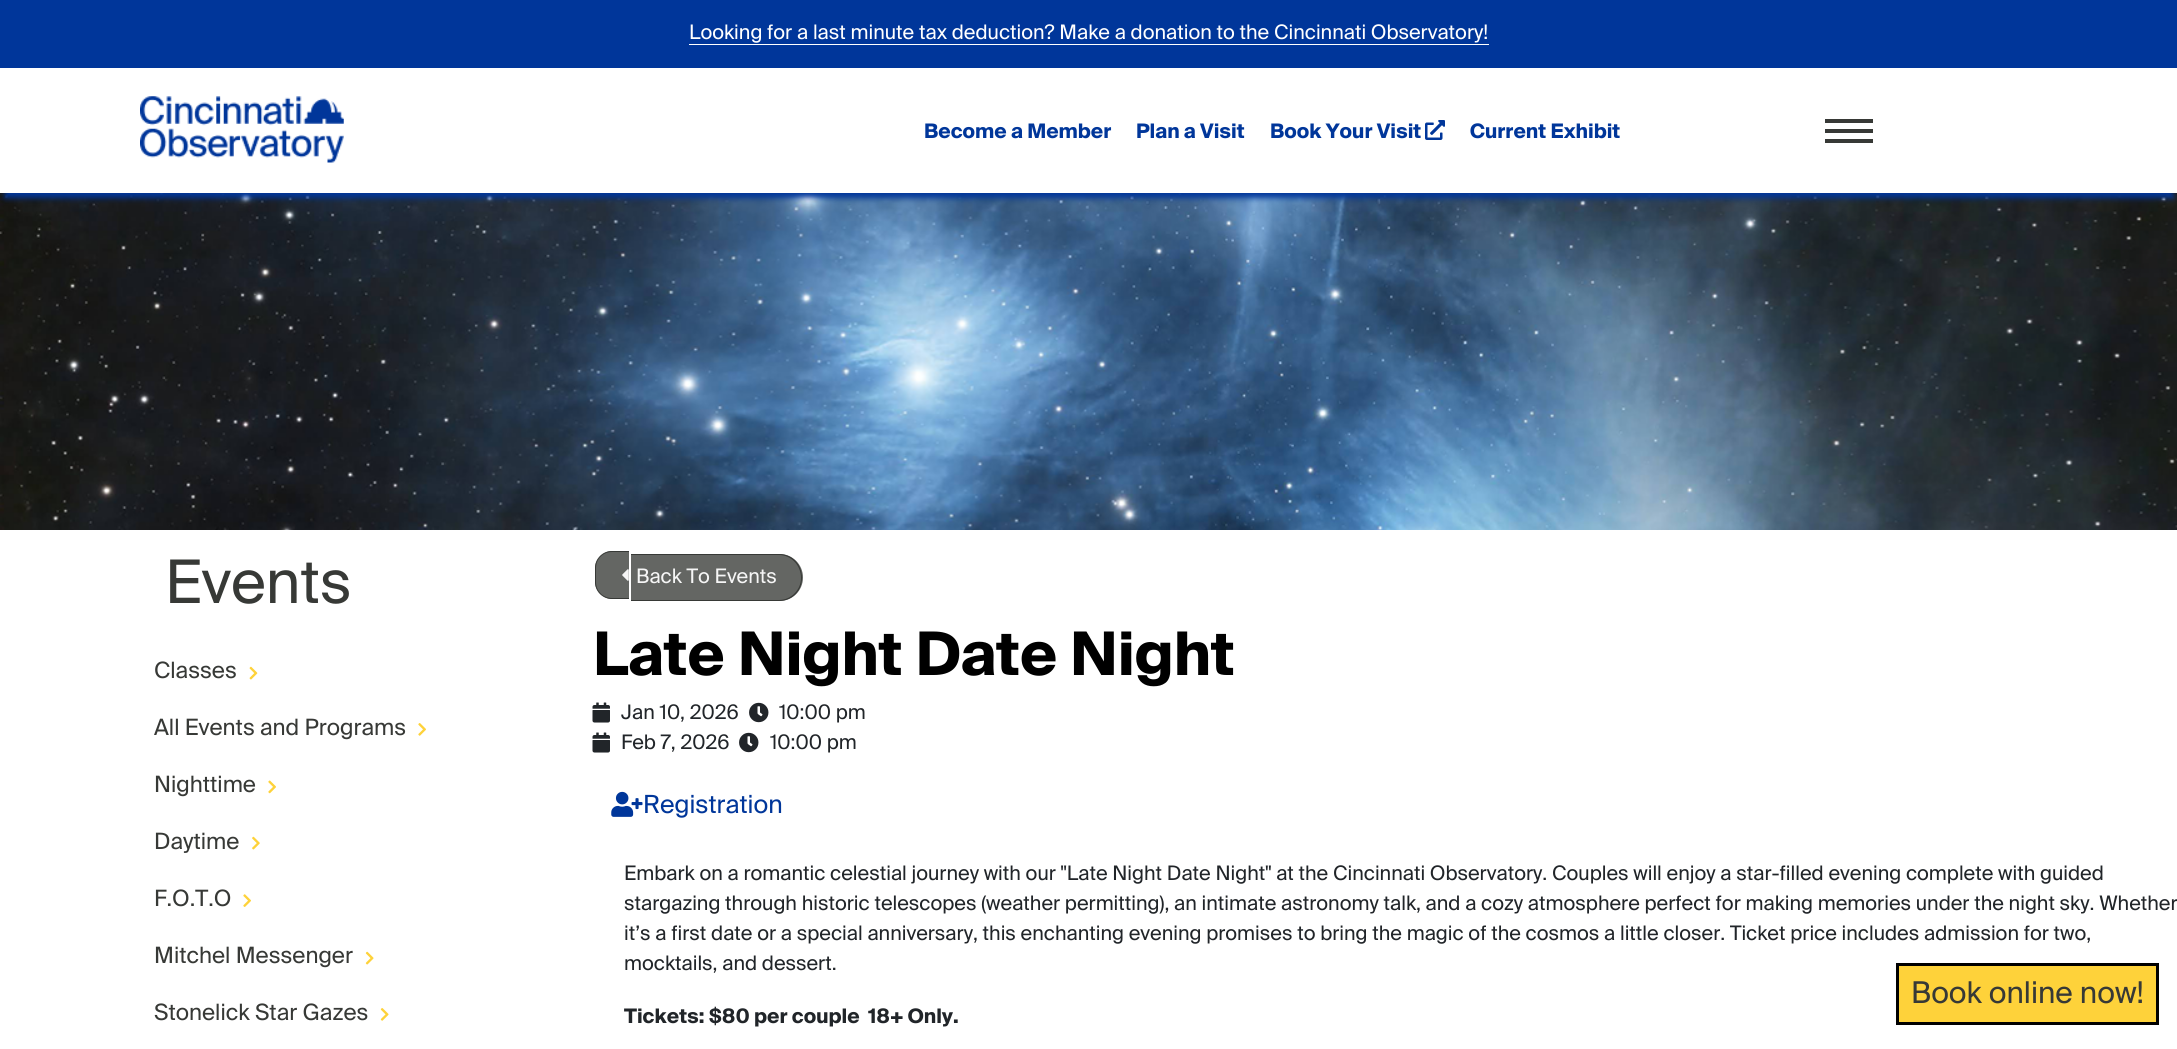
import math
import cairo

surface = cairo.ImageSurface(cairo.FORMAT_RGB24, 2177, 1049)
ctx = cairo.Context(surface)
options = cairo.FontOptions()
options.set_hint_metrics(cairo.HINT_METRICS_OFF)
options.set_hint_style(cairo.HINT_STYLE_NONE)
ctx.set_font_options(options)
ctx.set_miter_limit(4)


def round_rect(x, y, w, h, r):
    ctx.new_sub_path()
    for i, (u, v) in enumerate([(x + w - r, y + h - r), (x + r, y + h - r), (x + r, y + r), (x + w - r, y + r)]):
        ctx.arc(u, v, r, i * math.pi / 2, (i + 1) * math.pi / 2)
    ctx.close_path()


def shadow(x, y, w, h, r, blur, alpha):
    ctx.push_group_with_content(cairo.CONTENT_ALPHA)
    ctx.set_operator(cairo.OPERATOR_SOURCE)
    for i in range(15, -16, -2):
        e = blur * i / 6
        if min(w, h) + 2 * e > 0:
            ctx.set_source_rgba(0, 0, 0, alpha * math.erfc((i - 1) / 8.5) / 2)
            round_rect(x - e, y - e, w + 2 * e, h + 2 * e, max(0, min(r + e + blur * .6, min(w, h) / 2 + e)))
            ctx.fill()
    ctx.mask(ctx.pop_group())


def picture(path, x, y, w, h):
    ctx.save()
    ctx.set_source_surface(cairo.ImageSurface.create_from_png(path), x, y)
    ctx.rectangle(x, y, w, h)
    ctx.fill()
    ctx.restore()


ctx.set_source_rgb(1, 1, 1)
ctx.paint()
picture("img3.png", 0, 193, 2177, 337)
ctx.set_source_rgb(0, 0.212, 0.604)
shadow(5, 15, 2168, 183, 0, 3, 1)
ctx.set_source_rgb(1, 1, 1)
ctx.rectangle(0, 68, 2177, 125)
ctx.fill()
ctx.set_source_rgb(0, 0.212, 0.604)
ctx.rectangle(0, 0, 2177, 68)
ctx.fill()
ctx.select_font_face("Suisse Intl")
ctx.set_font_size(20)
ctx.set_source_rgb(1, 1, 1)
ctx.move_to(689, 39)
ctx.show_text("Looking for a last minute tax deduction? Make a donation to the Cincinnati Observatory!")
ctx.rectangle(689, 44, 800, 1)
ctx.fill()
picture("img1.png", 140, 96, 204, 67)
ctx.select_font_face("Suisse Intl", cairo.FONT_SLANT_NORMAL, cairo.FONT_WEIGHT_BOLD)
ctx.set_source_rgb(0, 0.212, 0.604)
ctx.move_to(924, 138)
ctx.show_text("Become a Member")
ctx.move_to(1136, 138)
ctx.show_text("Plan a Visit")
ctx.move_to(1270, 138)
ctx.show_text("Book Your Visit")
picture("img2.png", 1425, 120, 20, 20)
ctx.move_to(1470, 138)
ctx.show_text("Current Exhibit")
ctx.set_source_rgb(0.216, 0.224, 0.212)
ctx.rectangle(1825, 119, 48, 4)
ctx.fill()
ctx.rectangle(1825, 129, 48, 4)
ctx.fill()
ctx.rectangle(1825, 139, 48, 4)
ctx.fill()
ctx.select_font_face("Suisse Intl")
ctx.set_font_size(60)
ctx.move_to(165, 603)
ctx.show_text("Events")
ctx.set_font_size(22.5)
ctx.move_to(154, 678)
ctx.show_text("Classes")
picture("img4.png", 249, 666, 9, 14)
ctx.move_to(154, 735)
ctx.show_text("All Events and Programs")
picture("img5.png", 418, 723, 8, 13)
ctx.move_to(154, 792)
ctx.show_text("Nighttime")
picture("img6.png", 268, 780, 8, 14)
ctx.move_to(154, 849)
ctx.show_text("Daytime")
picture("img7.png", 252, 836, 8, 14)
ctx.move_to(154, 906)
ctx.show_text("F.O.T.O")
picture("img8.png", 243, 894, 8, 13)
ctx.move_to(154, 963)
ctx.show_text("Mitchel Messenger")
picture("img9.png", 365, 951, 9, 14)
ctx.move_to(154, 1020)
ctx.show_text("Stonelick Star Gazes")
picture("img10.png", 380, 1008, 9, 13)
ctx.set_source_rgb(0.392, 0.4, 0.388)
ctx.new_path()
ctx.move_to(612, 551)
ctx.line_to(629, 551)
ctx.line_to(629, 599)
ctx.line_to(612, 599)
ctx.curve_to(602.5, 599, 595, 591.5, 595, 582)
ctx.line_to(595, 568)
ctx.curve_to(595, 558.5, 602.5, 551, 612, 551)
ctx.close_path()
ctx.fill()
ctx.set_source_rgb(0.216, 0.224, 0.212)
ctx.set_fill_rule(cairo.FILL_RULE_EVEN_ODD)
ctx.new_path()
ctx.move_to(612, 551)
ctx.line_to(629, 551)
ctx.line_to(629, 599)
ctx.line_to(612, 599)
ctx.curve_to(603, 599, 595, 591, 595, 582)
ctx.line_to(595, 568)
ctx.curve_to(595, 559, 603, 551, 612, 551)
ctx.close_path()
ctx.move_to(612, 552)
ctx.line_to(629, 552)
ctx.line_to(629, 598)
ctx.line_to(612, 598)
ctx.curve_to(603, 598, 596, 591, 596, 582)
ctx.line_to(596, 568)
ctx.curve_to(596, 559, 603, 552, 612, 552)
ctx.close_path()
ctx.fill()
ctx.set_source_rgb(0.392, 0.4, 0.388)
ctx.new_path()
ctx.move_to(631, 554)
ctx.line_to(779.5, 554)
ctx.curve_to(792.5, 554, 803, 564.5, 803, 577.5)
ctx.curve_to(803, 590.5, 792.5, 601, 779.5, 601)
ctx.line_to(631, 601)
ctx.close_path()
ctx.fill()
ctx.set_source_rgb(0.216, 0.224, 0.212)
ctx.new_path()
ctx.move_to(631, 554)
ctx.line_to(779, 554)
ctx.curve_to(792, 554, 802, 564, 802, 578)
ctx.curve_to(802, 591, 792, 601, 779, 601)
ctx.line_to(631, 601)
ctx.close_path()
ctx.move_to(631, 555)
ctx.line_to(779, 555)
ctx.curve_to(791, 555, 801, 565, 801, 578)
ctx.curve_to(801, 590, 791, 600, 779, 600)
ctx.line_to(631, 600)
ctx.close_path()
ctx.fill()
picture("img11.png", 622, 569, 7, 12)
ctx.set_font_size(20)
ctx.set_source_rgb(0.961, 0.961, 0.961)
ctx.move_to(636, 583)
ctx.show_text("Back To Events")
ctx.select_font_face("Suisse Intl", cairo.FONT_SLANT_NORMAL, cairo.FONT_WEIGHT_BOLD)
ctx.set_font_size(60)
ctx.set_source_rgb(0, 0, 0)
ctx.move_to(593, 675)
ctx.show_text("Late Night Date Night")
picture("img12.png", 592, 702, 18, 21)
ctx.select_font_face("Suisse Intl")
ctx.set_font_size(20)
ctx.set_source_rgb(0.129, 0.145, 0.161)
ctx.move_to(621, 719)
ctx.show_text("Jan 10, 2026")
picture("img13.png", 749, 702, 20, 21)
ctx.move_to(779, 719)
ctx.show_text("10:00 pm")
picture("img12.png", 592, 732, 18, 21)
ctx.move_to(621, 749)
ctx.show_text("Feb 7, 2026")
picture("img13.png", 739, 732, 20, 21)
ctx.move_to(770, 749)
ctx.show_text("10:00 pm")
picture("img14.png", 611, 791, 32, 26)
ctx.set_font_size(25)
ctx.set_source_rgb(0, 0.212, 0.604)
ctx.move_to(643, 813)
ctx.show_text("Registration")
ctx.set_font_size(20)
ctx.set_source_rgb(0.129, 0.145, 0.161)
ctx.move_to(624, 880)
ctx.show_text("Embark on a romantic celestial journey with our \"Late Night Date Night\" at the Cincinnati Observatory. Couples will enjoy a star-filled evening complete with guided")
ctx.move_to(624, 910)
ctx.show_text("stargazing through historic telescopes (weather permitting), an intimate astronomy talk, and a cozy atmosphere perfect for making memories under the night sky. Whether")
ctx.move_to(624, 940)
ctx.show_text("it’s a first date or a special anniversary, this enchanting evening promises to bring the magic of the cosmos a little closer. Ticket price includes admission for two,")
ctx.move_to(624, 970)
ctx.show_text("mocktails, and dessert.")
ctx.select_font_face("Suisse Intl", cairo.FONT_SLANT_NORMAL, cairo.FONT_WEIGHT_BOLD)
ctx.move_to(624, 1023)
ctx.show_text("Tickets: $80 per couple")
ctx.move_to(868, 1023)
ctx.show_text("18+ Only.")
ctx.set_source_rgb(0.996, 0.824, 0.227)
ctx.rectangle(1897.5, 964.5, 260, 59)
ctx.fill_preserve()
ctx.set_source_rgb(0, 0, 0)
ctx.set_line_width(3)
ctx.stroke()
ctx.select_font_face("Suisse Intl")
ctx.set_font_size(30)
ctx.set_source_rgb(0.216, 0.224, 0.212)
ctx.move_to(1911, 1003)
ctx.show_text("Book online now!")
surface.write_to_png("page.png")
